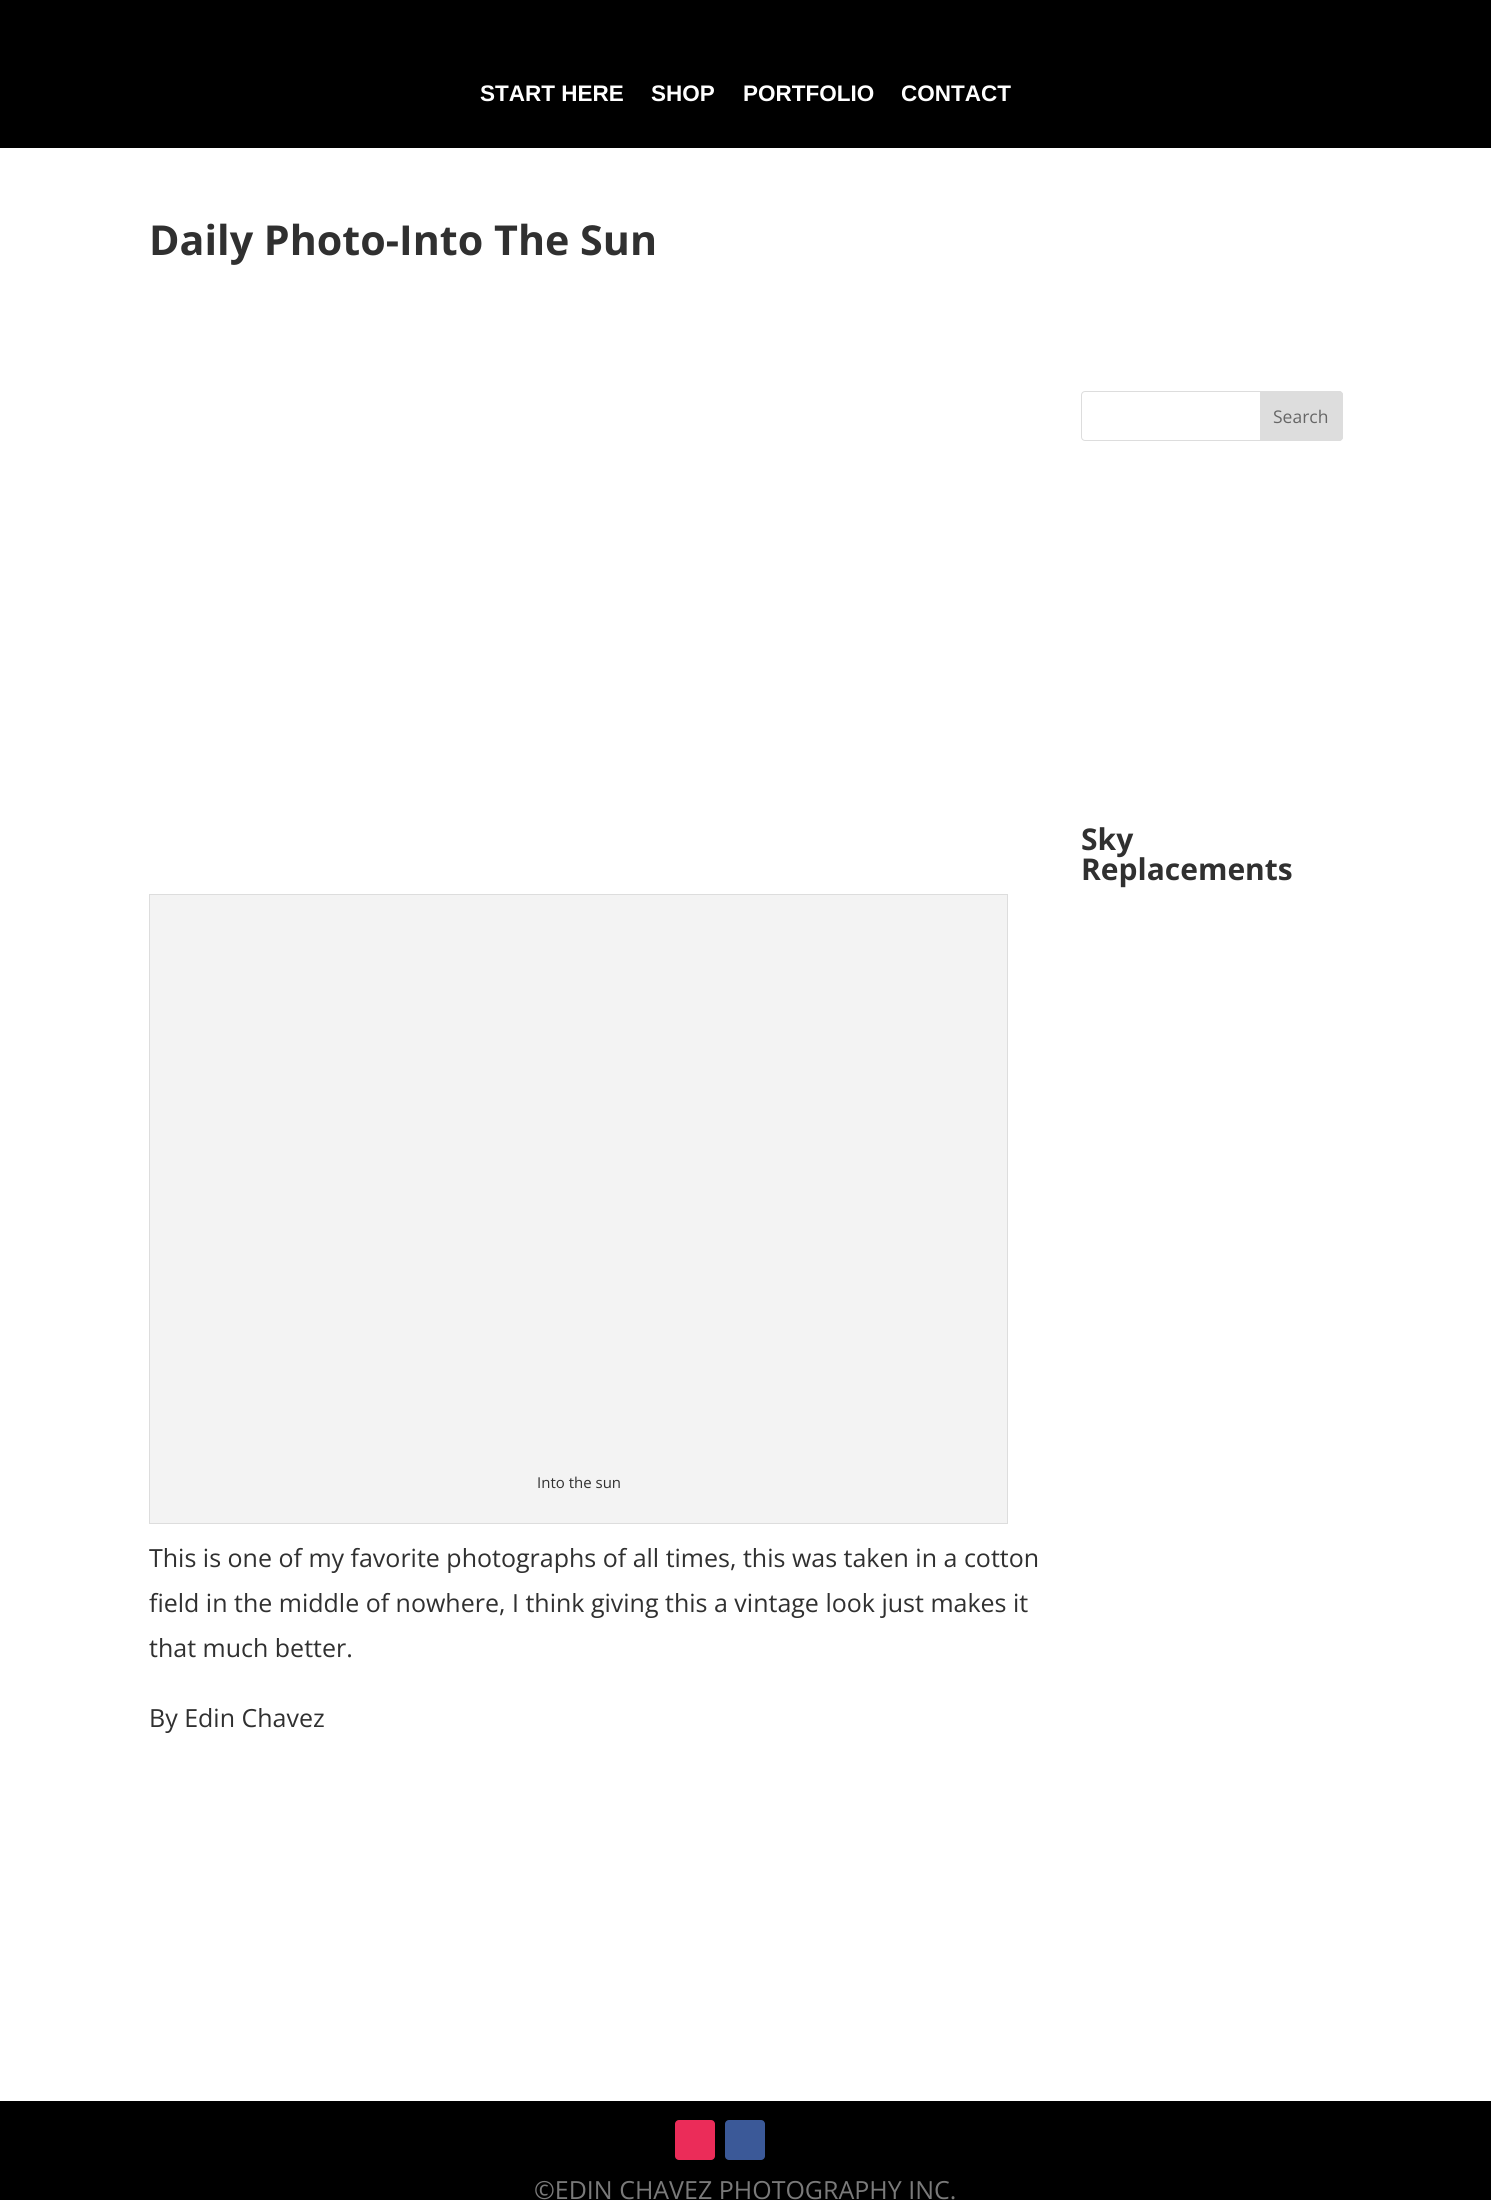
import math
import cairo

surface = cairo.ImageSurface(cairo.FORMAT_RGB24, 1491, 2200)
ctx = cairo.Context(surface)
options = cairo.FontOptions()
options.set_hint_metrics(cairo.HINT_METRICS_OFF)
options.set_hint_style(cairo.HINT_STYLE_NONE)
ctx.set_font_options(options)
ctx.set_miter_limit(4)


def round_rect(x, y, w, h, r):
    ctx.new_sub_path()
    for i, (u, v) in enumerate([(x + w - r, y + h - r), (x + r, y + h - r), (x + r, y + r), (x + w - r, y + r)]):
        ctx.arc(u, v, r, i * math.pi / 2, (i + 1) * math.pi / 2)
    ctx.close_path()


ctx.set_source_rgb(1, 1, 1)
ctx.paint()
ctx.set_source_rgb(0, 0, 0)
ctx.rectangle(0, 0, 1491, 148)
ctx.fill()
ctx.select_font_face("Liberation Sans", cairo.FONT_SLANT_NORMAL, cairo.FONT_WEIGHT_BOLD)
ctx.set_font_size(22.5)
ctx.set_source_rgb(1, 1, 1)
ctx.move_to(480, 101)
ctx.show_text("START HERE")
ctx.move_to(651, 101)
ctx.show_text("SHOP")
ctx.move_to(743, 101)
ctx.show_text("PORTFOLIO")
ctx.move_to(901, 101)
ctx.show_text("CONTACT")
ctx.select_font_face("Open Sans", cairo.FONT_SLANT_NORMAL, cairo.FONT_WEIGHT_BOLD)
ctx.set_font_size(41.25)
ctx.set_source_rgb(0.188, 0.188, 0.188)
ctx.move_to(149, 255)
ctx.show_text("Daily Photo-Into The Sun")
ctx.set_source_rgb(0.953, 0.953, 0.953)
ctx.rectangle(149.5, 894.5, 858, 629)
ctx.fill_preserve()
ctx.set_source_rgb(0.867, 0.867, 0.867)
ctx.set_line_width(1)
ctx.stroke()
ctx.select_font_face("Open Sans")
ctx.set_font_size(15)
ctx.set_source_rgb(0.188, 0.188, 0.188)
ctx.move_to(537, 1488)
ctx.show_text("Into the sun")
ctx.set_font_size(25)
ctx.move_to(149, 1567)
ctx.show_text("This is one of my favorite photographs of all times, this was taken in a cotton")
ctx.move_to(149, 1612)
ctx.show_text("field in the middle of nowhere, I think giving this a vintage look just makes it")
ctx.move_to(149, 1657)
ctx.show_text("that much better.")
ctx.move_to(149, 1727)
ctx.show_text("By Edin Chavez")
round_rect(1081.5, 391.5, 261, 49, 3.5)
ctx.set_source_rgb(0.867, 0.867, 0.867)
ctx.stroke()
ctx.new_path()
ctx.move_to(1260.5, 391.5)
ctx.line_to(1339, 391.5)
ctx.curve_to(1341, 391.5, 1342.5, 393, 1342.5, 395)
ctx.line_to(1342.5, 437)
ctx.curve_to(1342.5, 439, 1341, 440.5, 1339, 440.5)
ctx.line_to(1260.5, 440.5)
ctx.close_path()
ctx.fill_preserve()
ctx.stroke()
ctx.set_font_size(17.5)
ctx.set_source_rgb(0.4, 0.4, 0.4)
ctx.move_to(1273, 423)
ctx.show_text("Search")
ctx.select_font_face("Open Sans", cairo.FONT_SLANT_NORMAL, cairo.FONT_WEIGHT_BOLD)
ctx.set_font_size(30)
ctx.set_source_rgb(0.188, 0.188, 0.188)
ctx.move_to(1081, 850)
ctx.show_text("Sky")
ctx.move_to(1081, 880)
ctx.show_text("Replacements")
ctx.set_source_rgb(0, 0, 0)
ctx.rectangle(0, 2101, 1491, 99)
ctx.fill()
ctx.set_source_rgb(0.918, 0.173, 0.349)
round_rect(675, 2120, 40, 40, 4)
ctx.fill()
ctx.set_source_rgb(0.231, 0.349, 0.596)
round_rect(725, 2120, 40, 40, 4)
ctx.fill()
ctx.select_font_face("Open Sans")
ctx.set_font_size(25)
ctx.set_source_rgb(0.478, 0.478, 0.478)
ctx.move_to(534, 2199)
ctx.show_text("©EDIN CHAVEZ PHOTOGRAPHY INC.")
surface.write_to_png("page.png")
